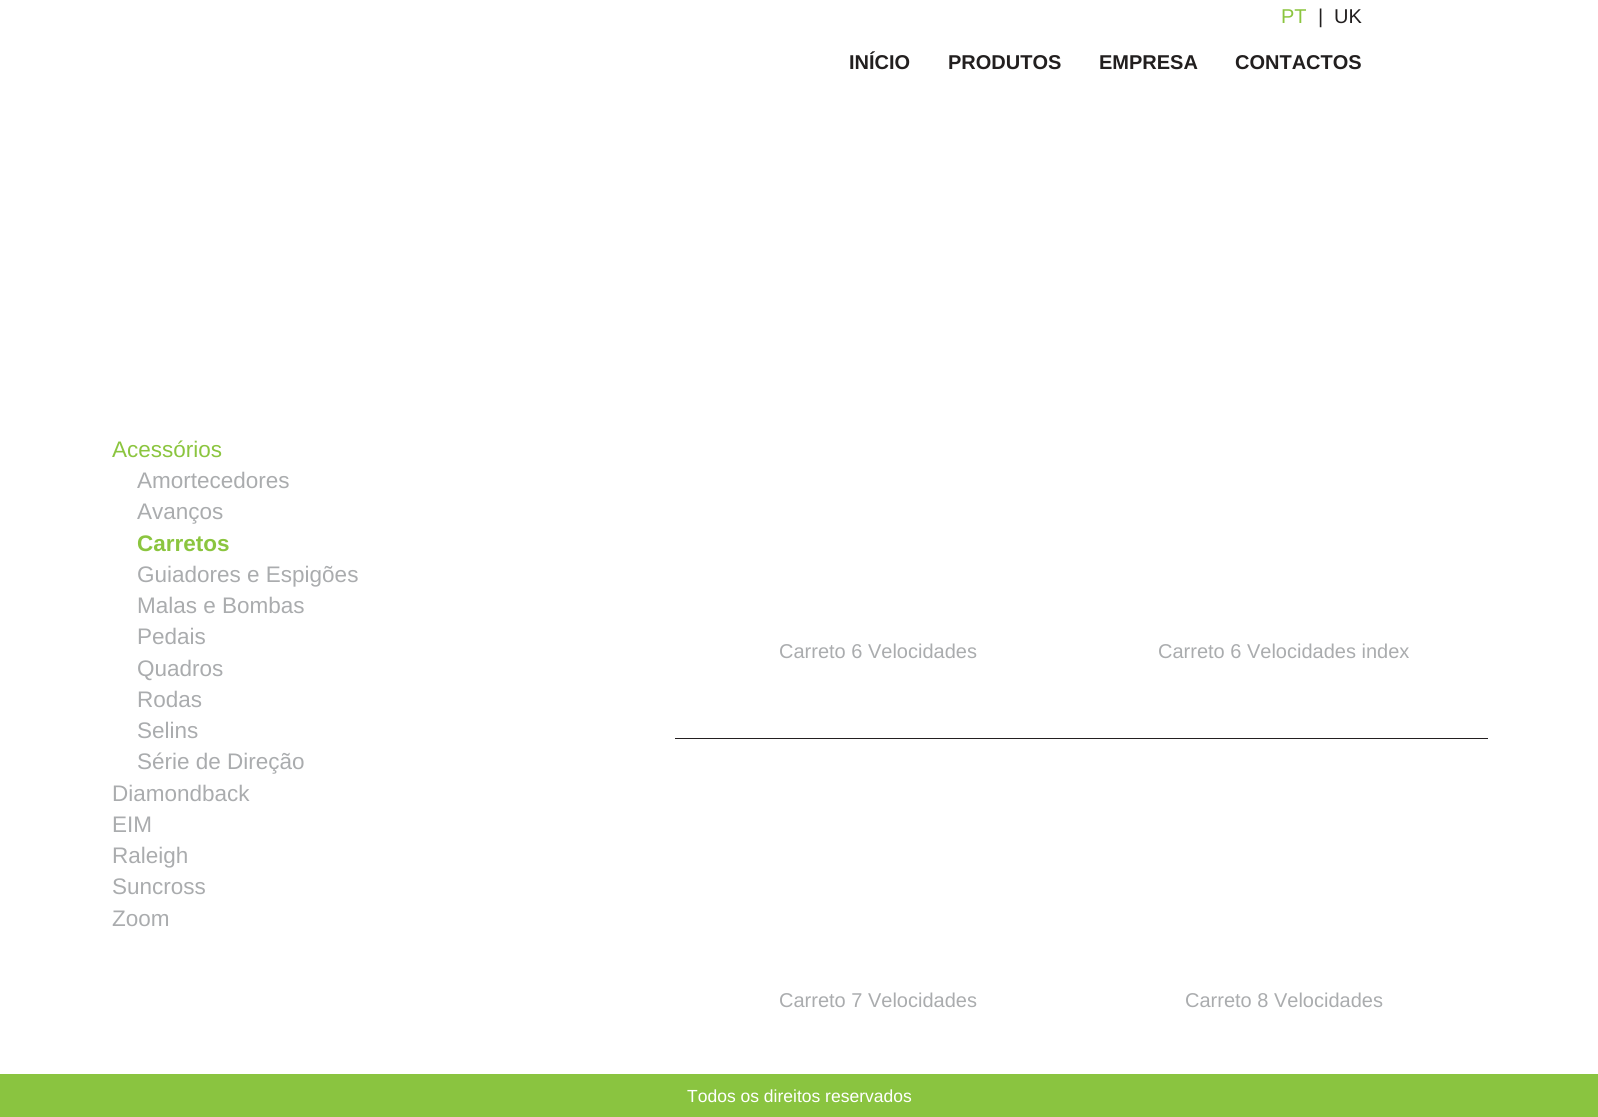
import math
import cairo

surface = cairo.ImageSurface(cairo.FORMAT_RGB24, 1598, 1117)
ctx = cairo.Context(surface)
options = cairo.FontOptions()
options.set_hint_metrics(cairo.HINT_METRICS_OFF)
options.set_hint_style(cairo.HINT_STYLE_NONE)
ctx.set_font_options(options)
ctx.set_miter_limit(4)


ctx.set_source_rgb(1, 1, 1)
ctx.paint()
ctx.select_font_face("Liberation Sans")
ctx.set_font_size(20)
ctx.set_source_rgb(0.545, 0.773, 0.247)
ctx.move_to(1281, 23)
ctx.show_text("PT")
ctx.set_source_rgb(0.133, 0.122, 0.122)
ctx.move_to(1318, 23)
ctx.show_text("|")
ctx.move_to(1334, 23)
ctx.show_text("UK")
ctx.select_font_face("Liberation Sans", cairo.FONT_SLANT_NORMAL, cairo.FONT_WEIGHT_BOLD)
ctx.move_to(849, 69)
ctx.show_text("INÍCIO")
ctx.move_to(948, 69)
ctx.show_text("PRODUTOS")
ctx.move_to(1099, 69)
ctx.show_text("EMPRESA")
ctx.move_to(1235, 69)
ctx.show_text("CONTACTOS")
ctx.select_font_face("Liberation Sans")
ctx.set_font_size(22.5)
ctx.set_source_rgb(0.545, 0.773, 0.247)
ctx.move_to(112, 457)
ctx.show_text("Acessórios")
ctx.set_source_rgb(0.667, 0.675, 0.682)
ctx.move_to(137, 488)
ctx.show_text("Amortecedores")
ctx.move_to(137, 519)
ctx.show_text("Avanços")
ctx.select_font_face("Liberation Sans", cairo.FONT_SLANT_NORMAL, cairo.FONT_WEIGHT_BOLD)
ctx.set_source_rgb(0.545, 0.773, 0.247)
ctx.move_to(137, 551)
ctx.show_text("Carretos")
ctx.select_font_face("Liberation Sans")
ctx.set_source_rgb(0.667, 0.675, 0.682)
ctx.move_to(137, 582)
ctx.show_text("Guiadores e Espigões")
ctx.move_to(137, 613)
ctx.show_text("Malas e Bombas")
ctx.move_to(137, 644)
ctx.show_text("Pedais")
ctx.move_to(137, 676)
ctx.show_text("Quadros")
ctx.move_to(137, 707)
ctx.show_text("Rodas")
ctx.move_to(137, 738)
ctx.show_text("Selins")
ctx.move_to(137, 769)
ctx.show_text("Série de Direção")
ctx.move_to(112, 801)
ctx.show_text("Diamondback")
ctx.move_to(112, 832)
ctx.show_text("EIM")
ctx.move_to(112, 863)
ctx.show_text("Raleigh")
ctx.move_to(112, 894)
ctx.show_text("Suncross")
ctx.move_to(112, 926)
ctx.show_text("Zoom")
ctx.set_font_size(20)
ctx.move_to(779, 658)
ctx.show_text("Carreto 6 Velocidades")
ctx.move_to(1158, 658)
ctx.show_text("Carreto 6 Velocidades index")
ctx.set_source_rgb(0.137, 0.122, 0.125)
ctx.rectangle(675, 738, 813, 1)
ctx.fill()
ctx.set_source_rgb(0.667, 0.675, 0.682)
ctx.move_to(779, 1007)
ctx.show_text("Carreto 7 Velocidades")
ctx.move_to(1185, 1007)
ctx.show_text("Carreto 8 Velocidades")
ctx.set_source_rgb(0.541, 0.769, 0.251)
ctx.rectangle(0, 1074, 1598, 43)
ctx.fill()
ctx.set_font_size(17.5)
ctx.set_source_rgb(1, 1, 1)
ctx.move_to(687, 1102)
ctx.show_text("Todos os direitos reservados")
surface.write_to_png("page.png")
